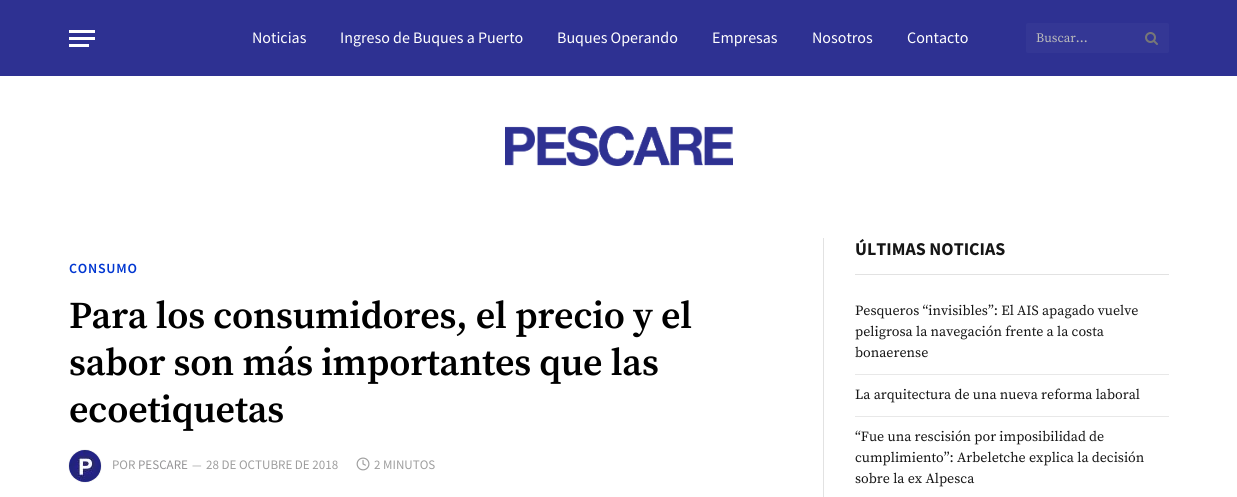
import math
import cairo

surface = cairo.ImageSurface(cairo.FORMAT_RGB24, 1237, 497)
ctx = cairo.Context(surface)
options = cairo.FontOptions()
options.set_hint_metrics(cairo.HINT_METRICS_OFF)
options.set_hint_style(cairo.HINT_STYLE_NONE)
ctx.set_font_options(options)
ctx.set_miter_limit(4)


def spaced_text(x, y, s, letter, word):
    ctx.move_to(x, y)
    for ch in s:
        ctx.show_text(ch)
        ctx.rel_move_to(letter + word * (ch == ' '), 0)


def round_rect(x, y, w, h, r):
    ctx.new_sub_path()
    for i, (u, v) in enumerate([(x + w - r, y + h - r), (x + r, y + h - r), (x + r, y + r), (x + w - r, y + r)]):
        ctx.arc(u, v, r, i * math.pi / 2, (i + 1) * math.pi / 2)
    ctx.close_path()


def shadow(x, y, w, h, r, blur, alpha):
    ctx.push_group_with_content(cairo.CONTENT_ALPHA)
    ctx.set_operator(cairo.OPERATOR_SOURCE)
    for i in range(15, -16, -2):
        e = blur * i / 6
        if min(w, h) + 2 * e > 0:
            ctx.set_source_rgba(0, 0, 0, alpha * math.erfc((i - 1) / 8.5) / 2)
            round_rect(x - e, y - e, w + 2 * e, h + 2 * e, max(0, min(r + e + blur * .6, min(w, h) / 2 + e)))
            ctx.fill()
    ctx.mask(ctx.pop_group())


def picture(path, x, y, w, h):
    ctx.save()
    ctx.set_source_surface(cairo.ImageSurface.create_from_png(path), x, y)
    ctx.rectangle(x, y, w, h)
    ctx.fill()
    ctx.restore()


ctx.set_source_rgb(1, 1, 1)
ctx.paint()
ctx.set_source_rgb(0.18, 0.192, 0.573)
ctx.rectangle(0, 0, 1237, 76)
ctx.fill()
ctx.set_source_rgb(1, 1, 1)
ctx.rectangle(69, 44, 20, 3)
ctx.fill()
ctx.rectangle(69, 30, 26, 3)
ctx.fill()
ctx.rectangle(69, 37, 26, 3)
ctx.fill()
ctx.select_font_face("Source Sans Pro")
ctx.set_font_size(16)
ctx.move_to(252, 43)
ctx.show_text("Noticias")
ctx.move_to(340, 43)
ctx.show_text("Ingreso de Buques a Puerto")
ctx.move_to(557, 43)
ctx.show_text("Buques Operando")
ctx.move_to(712, 43)
ctx.show_text("Empresas")
ctx.move_to(812, 43)
ctx.show_text("Nosotros")
ctx.move_to(907, 43)
ctx.show_text("Contacto")
ctx.set_source_rgb(0.204, 0.216, 0.584)
round_rect(1026, 23, 143, 30, 2)
ctx.fill()
ctx.select_font_face("Source Serif Pro")
ctx.set_font_size(13)
ctx.set_source_rgb(0.733, 0.733, 0.733)
ctx.move_to(1036, 42)
ctx.show_text("Buscar...")
picture("img1.png", 1145, 32, 13, 13)
picture("img2.png", 505, 126, 228, 40)
ctx.select_font_face("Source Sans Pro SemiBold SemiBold")
ctx.set_font_size(14)
ctx.set_source_rgb(0, 0.212, 0.82)
spaced_text(69, 273, "CONSUMO", 0.75, 0)
ctx.select_font_face("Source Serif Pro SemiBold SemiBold")
ctx.set_font_size(38)
ctx.set_source_rgb(0, 0, 0)
spaced_text(69, 328, "Para los consumidores, el precio y el", -0.2, 0)
spaced_text(69, 375, "sabor son más importantes que las", -0.2, 0)
spaced_text(69, 422, "ecoetiquetas", -0.2, 0)
ctx.set_source_rgb(0, 0, 0)
shadow(69, 450, 32, 32, 16, 0.5, 0.2)
picture("img3.png", 69, 450, 32, 32)
ctx.select_font_face("Source Sans Pro")
ctx.set_font_size(13)
ctx.set_source_rgb(0.62, 0.62, 0.62)
ctx.move_to(112, 469)
ctx.show_text("POR")
ctx.set_source_rgb(0.584, 0.58, 0.588)
ctx.move_to(138, 469)
ctx.show_text("PESCARE")
ctx.set_font_size(12)
ctx.set_source_rgb(0.62, 0.62, 0.62)
ctx.move_to(192, 469)
ctx.show_text("—")
ctx.set_font_size(13)
ctx.move_to(206, 469)
ctx.show_text("28 DE OCTUBRE DE 2018")
picture("img4.png", 356, 457, 14, 14)
ctx.move_to(374, 469)
ctx.show_text("2 MINUTOS")
ctx.set_source_rgb(0.886, 0.886, 0.886)
ctx.rectangle(823, 238, 1, 259)
ctx.fill()
ctx.rectangle(855, 274, 314, 1)
ctx.fill()
ctx.select_font_face("Source Sans Pro", cairo.FONT_SLANT_NORMAL, cairo.FONT_WEIGHT_BOLD)
ctx.set_font_size(18)
ctx.set_source_rgb(0.086, 0.086, 0.086)
ctx.move_to(855, 255)
ctx.show_text("ÚLTIMAS NOTICIAS")
ctx.set_source_rgb(0.91, 0.91, 0.91)
ctx.rectangle(855, 374, 314, 1)
ctx.fill()
ctx.select_font_face("Source Serif Pro")
ctx.set_font_size(14)
ctx.set_source_rgb(0.086, 0.086, 0.086)
ctx.move_to(855, 315)
ctx.show_text("Pesqueros “invisibles”: El AIS apagado vuelve")
ctx.move_to(855, 336)
ctx.show_text("peligrosa la navegación frente a la costa")
ctx.move_to(855, 357)
ctx.show_text("bonaerense")
ctx.set_source_rgb(0.91, 0.91, 0.91)
ctx.rectangle(855, 416, 314, 1)
ctx.fill()
ctx.set_source_rgb(0.086, 0.086, 0.086)
ctx.move_to(855, 399)
ctx.show_text("La arquitectura de una nueva reforma laboral")
ctx.move_to(855, 441)
ctx.show_text("“Fue una rescisión por imposibilidad de")
ctx.move_to(855, 462)
ctx.show_text("cumplimiento”: Arbeletche explica la decisión")
ctx.move_to(855, 483)
ctx.show_text("sobre la ex Alpesca")
surface.write_to_png("page.png")
